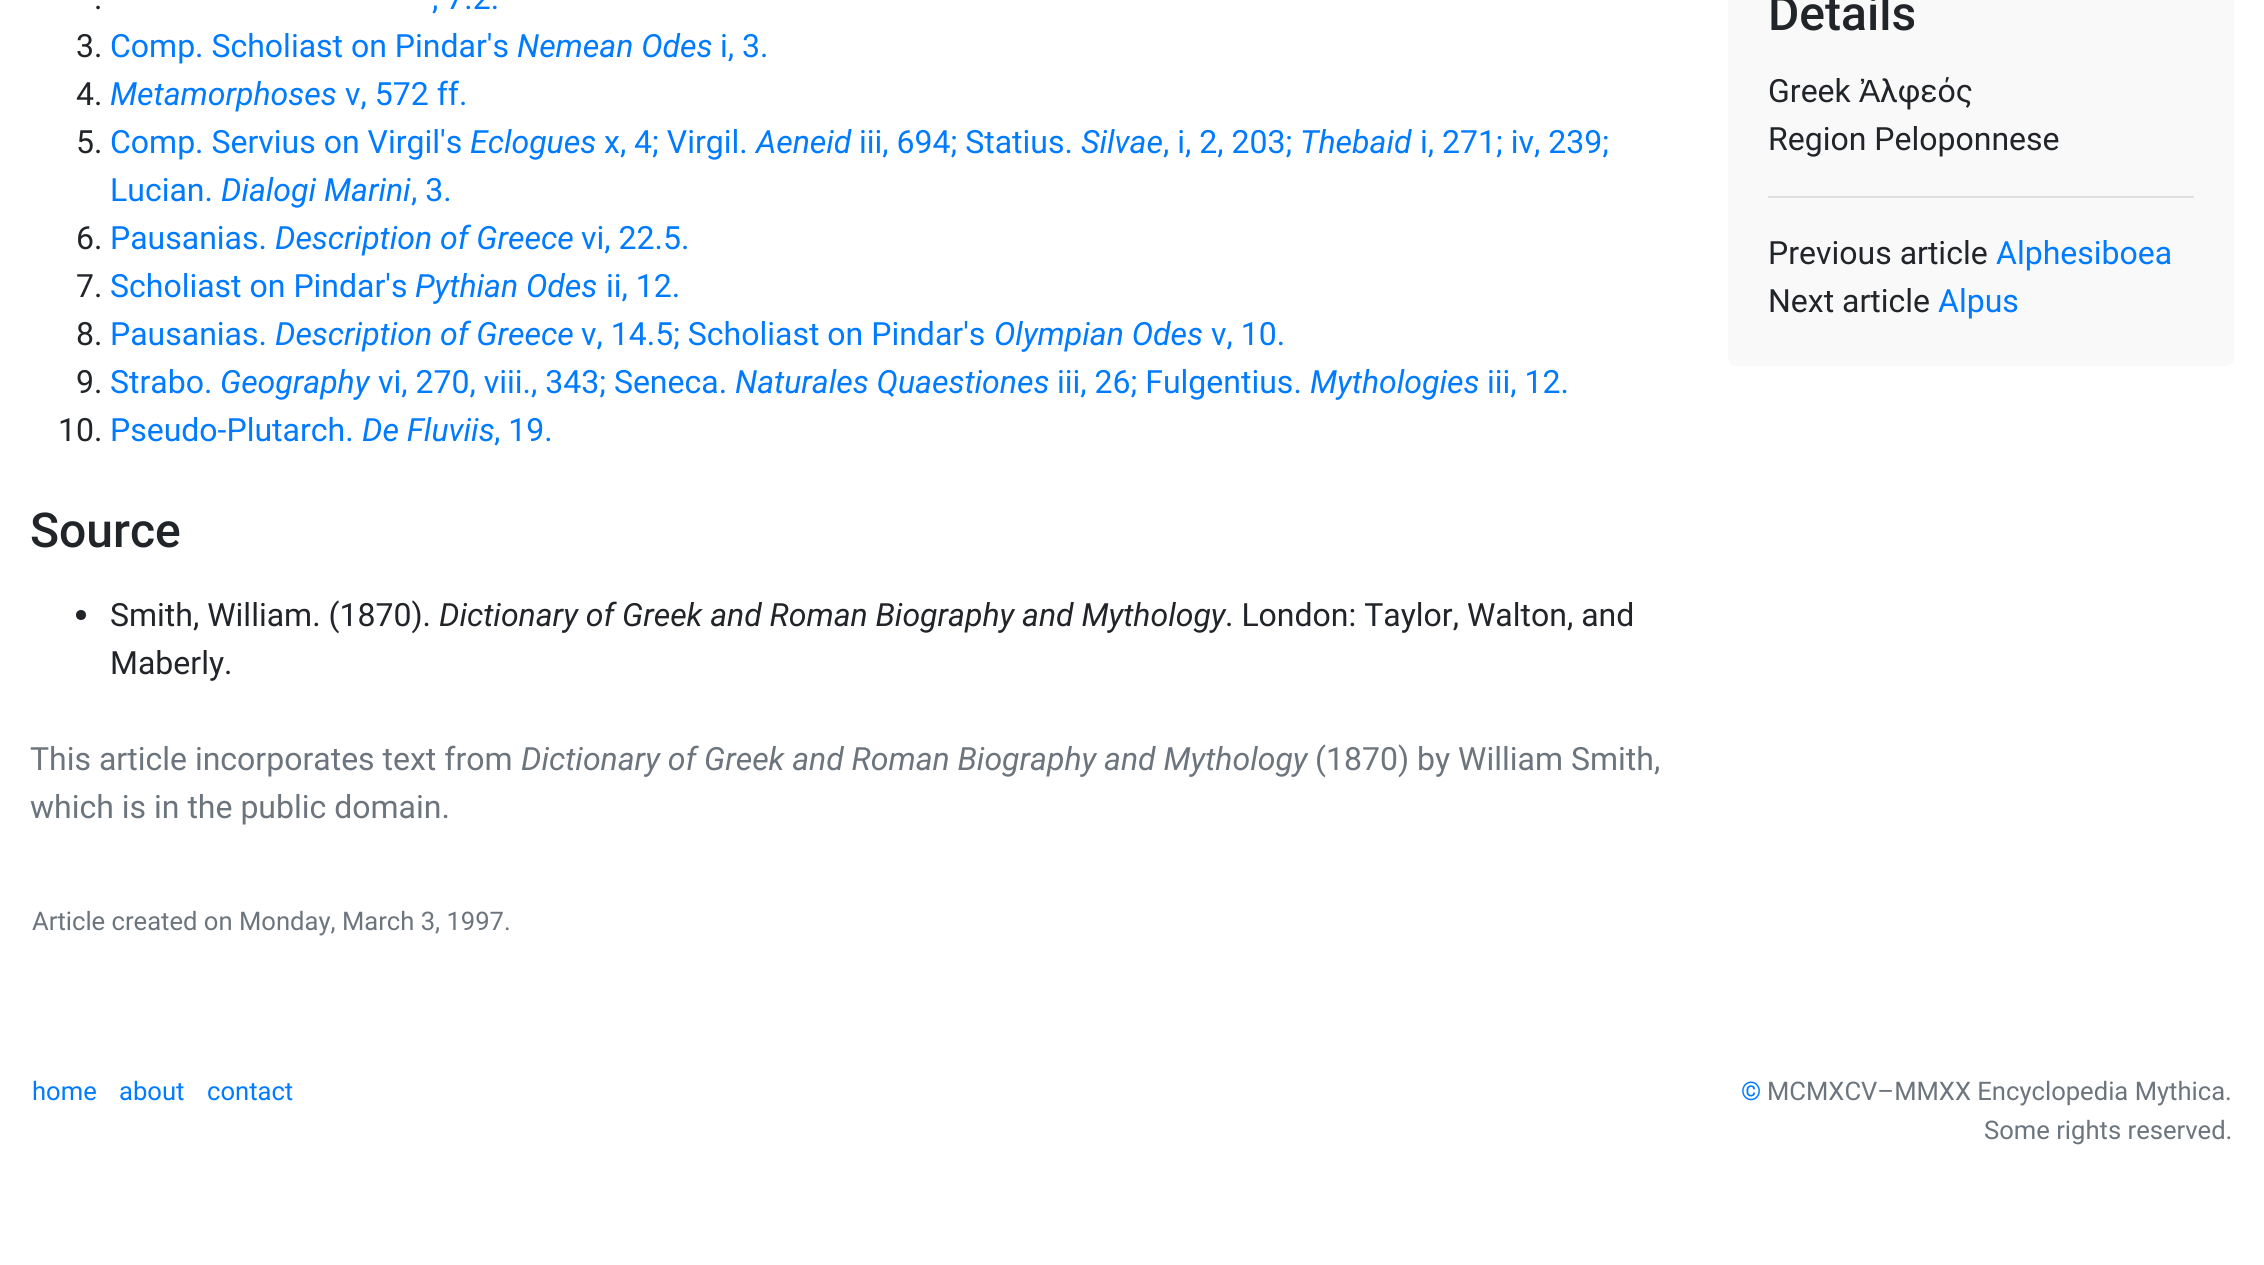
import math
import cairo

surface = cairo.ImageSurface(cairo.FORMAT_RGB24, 2264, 1265)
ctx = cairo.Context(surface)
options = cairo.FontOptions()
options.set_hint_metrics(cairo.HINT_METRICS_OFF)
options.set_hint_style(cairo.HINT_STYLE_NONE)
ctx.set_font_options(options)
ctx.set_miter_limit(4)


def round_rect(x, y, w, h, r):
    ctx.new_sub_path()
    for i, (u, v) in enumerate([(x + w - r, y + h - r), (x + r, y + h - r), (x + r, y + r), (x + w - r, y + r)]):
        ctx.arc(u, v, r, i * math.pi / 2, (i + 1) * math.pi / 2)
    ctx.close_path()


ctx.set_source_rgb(1, 1, 1)
ctx.paint()
ctx.select_font_face("Roboto")
ctx.set_font_size(32)
ctx.set_source_rgb(0.129, 0.145, 0.161)
ctx.move_to(94, 9)
ctx.show_text(".")
ctx.set_source_rgb(0, 0.482, 1)
ctx.move_to(432, 9)
ctx.show_text(", 7.2.")
ctx.set_source_rgb(0.129, 0.145, 0.161)
ctx.move_to(76, 57)
ctx.show_text("3.")
ctx.set_source_rgb(0, 0.482, 1)
ctx.move_to(110, 57)
ctx.show_text("Comp. Scholiast on Pindar's")
ctx.select_font_face("Roboto", cairo.FONT_SLANT_ITALIC)
ctx.move_to(517, 57)
ctx.show_text("Nemean Odes")
ctx.select_font_face("Roboto")
ctx.move_to(720, 57)
ctx.show_text("i, 3.")
ctx.set_source_rgb(0.129, 0.145, 0.161)
ctx.move_to(76, 105)
ctx.show_text("4.")
ctx.select_font_face("Roboto", cairo.FONT_SLANT_ITALIC)
ctx.set_source_rgb(0, 0.482, 1)
ctx.move_to(110, 105)
ctx.show_text("Metamorphoses")
ctx.select_font_face("Roboto")
ctx.move_to(345, 105)
ctx.show_text("v, 572 ff.")
ctx.set_source_rgb(0.129, 0.145, 0.161)
ctx.move_to(76, 153)
ctx.show_text("5.")
ctx.set_source_rgb(0, 0.482, 1)
ctx.move_to(110, 153)
ctx.show_text("Comp. Servius on Virgil's")
ctx.select_font_face("Roboto", cairo.FONT_SLANT_ITALIC)
ctx.move_to(470, 153)
ctx.show_text("Eclogues")
ctx.select_font_face("Roboto")
ctx.move_to(604, 153)
ctx.show_text("x, 4; Virgil.")
ctx.select_font_face("Roboto", cairo.FONT_SLANT_ITALIC)
ctx.move_to(756, 153)
ctx.show_text("Aeneid")
ctx.select_font_face("Roboto")
ctx.move_to(859, 153)
ctx.show_text("iii, 694; Statius.")
ctx.select_font_face("Roboto", cairo.FONT_SLANT_ITALIC)
ctx.move_to(1081, 153)
ctx.show_text("Silvae")
ctx.select_font_face("Roboto")
ctx.move_to(1163, 153)
ctx.show_text(", i, 2, 203;")
ctx.select_font_face("Roboto", cairo.FONT_SLANT_ITALIC)
ctx.move_to(1300, 153)
ctx.show_text("Thebaid")
ctx.select_font_face("Roboto")
ctx.move_to(1420, 153)
ctx.show_text("i, 271; iv, 239;")
ctx.move_to(110, 201)
ctx.show_text("Lucian.")
ctx.select_font_face("Roboto", cairo.FONT_SLANT_ITALIC)
ctx.move_to(221, 201)
ctx.show_text("Dialogi Marini")
ctx.select_font_face("Roboto")
ctx.move_to(411, 201)
ctx.show_text(", 3.")
ctx.set_source_rgb(0.129, 0.145, 0.161)
ctx.move_to(76, 249)
ctx.show_text("6.")
ctx.set_source_rgb(0, 0.482, 1)
ctx.move_to(110, 249)
ctx.show_text("Pausanias.")
ctx.select_font_face("Roboto", cairo.FONT_SLANT_ITALIC)
ctx.move_to(275, 249)
ctx.show_text("Description of Greece")
ctx.select_font_face("Roboto")
ctx.move_to(581, 249)
ctx.show_text("vi, 22.5.")
ctx.set_source_rgb(0.129, 0.145, 0.161)
ctx.move_to(76, 297)
ctx.show_text("7.")
ctx.set_source_rgb(0, 0.482, 1)
ctx.move_to(110, 297)
ctx.show_text("Scholiast on Pindar's")
ctx.select_font_face("Roboto", cairo.FONT_SLANT_ITALIC)
ctx.move_to(415, 297)
ctx.show_text("Pythian Odes")
ctx.select_font_face("Roboto")
ctx.move_to(606, 297)
ctx.show_text("ii, 12.")
ctx.set_source_rgb(0.129, 0.145, 0.161)
ctx.move_to(76, 345)
ctx.show_text("8.")
ctx.set_source_rgb(0, 0.482, 1)
ctx.move_to(110, 345)
ctx.show_text("Pausanias.")
ctx.select_font_face("Roboto", cairo.FONT_SLANT_ITALIC)
ctx.move_to(275, 345)
ctx.show_text("Description of Greece")
ctx.select_font_face("Roboto")
ctx.move_to(581, 345)
ctx.show_text("v, 14.5; Scholiast on Pindar's")
ctx.select_font_face("Roboto", cairo.FONT_SLANT_ITALIC)
ctx.move_to(994, 345)
ctx.show_text("Olympian Odes")
ctx.select_font_face("Roboto")
ctx.move_to(1211, 345)
ctx.show_text("v, 10.")
ctx.set_source_rgb(0.129, 0.145, 0.161)
ctx.move_to(76, 393)
ctx.show_text("9.")
ctx.set_source_rgb(0, 0.482, 1)
ctx.move_to(110, 393)
ctx.show_text("Strabo.")
ctx.select_font_face("Roboto", cairo.FONT_SLANT_ITALIC)
ctx.move_to(220, 393)
ctx.show_text("Geography")
ctx.select_font_face("Roboto")
ctx.move_to(378, 393)
ctx.show_text("vi, 270, viii., 343; Seneca.")
ctx.select_font_face("Roboto", cairo.FONT_SLANT_ITALIC)
ctx.move_to(735, 393)
ctx.show_text("Naturales Quaestiones")
ctx.select_font_face("Roboto")
ctx.move_to(1057, 393)
ctx.show_text("iii, 26; Fulgentius.")
ctx.select_font_face("Roboto", cairo.FONT_SLANT_ITALIC)
ctx.move_to(1310, 393)
ctx.show_text("Mythologies")
ctx.select_font_face("Roboto")
ctx.move_to(1487, 393)
ctx.show_text("iii, 12.")
ctx.set_source_rgb(0.129, 0.145, 0.161)
ctx.move_to(58, 441)
ctx.show_text("10.")
ctx.set_source_rgb(0, 0.482, 1)
ctx.move_to(110, 441)
ctx.show_text("Pseudo-Plutarch.")
ctx.select_font_face("Roboto", cairo.FONT_SLANT_ITALIC)
ctx.move_to(362, 441)
ctx.show_text("De Fluviis")
ctx.select_font_face("Roboto")
ctx.move_to(494, 441)
ctx.show_text(", 19.")
ctx.select_font_face("Roboto Medium")
ctx.set_font_size(48)
ctx.set_source_rgb(0.129, 0.145, 0.161)
ctx.move_to(30, 547)
ctx.show_text("Source")
ctx.new_path()
ctx.arc(81, 615, 5, 0, 2 * math.pi)
ctx.fill()
ctx.select_font_face("Roboto")
ctx.set_font_size(32)
ctx.move_to(110, 626)
ctx.show_text("Smith, William. (1870).")
ctx.select_font_face("Roboto", cairo.FONT_SLANT_ITALIC)
ctx.move_to(439, 626)
ctx.show_text("Dictionary of Greek and Roman Biography and Mythology")
ctx.select_font_face("Roboto")
ctx.move_to(1225, 626)
ctx.show_text(". London: Taylor, Walton, and")
ctx.move_to(110, 674)
ctx.show_text("Maberly.")
ctx.set_source_rgb(0.424, 0.459, 0.49)
ctx.move_to(30, 770)
ctx.show_text("This article incorporates text from")
ctx.select_font_face("Roboto", cairo.FONT_SLANT_ITALIC)
ctx.move_to(521, 770)
ctx.show_text("Dictionary of Greek and Roman Biography and Mythology")
ctx.select_font_face("Roboto")
ctx.move_to(1315, 770)
ctx.show_text("(1870) by William Smith,")
ctx.move_to(30, 818)
ctx.show_text("which is in the public domain.")
ctx.set_source_rgb(0.973, 0.976, 0.98)
round_rect(1728, -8, 506, 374, 8)
ctx.fill()
ctx.select_font_face("Roboto Medium")
ctx.set_font_size(48)
ctx.set_source_rgb(0.129, 0.145, 0.161)
ctx.move_to(1768, 30)
ctx.show_text("Details")
ctx.select_font_face("Roboto")
ctx.set_font_size(32)
ctx.move_to(1768, 102)
ctx.show_text("Greek")
ctx.select_font_face("Liberation Sans")
ctx.move_to(1859, 102)
ctx.show_text("Ἀ")
ctx.select_font_face("Roboto")
ctx.move_to(1880, 102)
ctx.show_text("λφεός")
ctx.move_to(1768, 150)
ctx.show_text("Region Peloponnese")
ctx.set_source_rgb(0.875, 0.878, 0.882)
ctx.rectangle(1768, 196, 426, 2)
ctx.fill()
ctx.set_source_rgb(0.129, 0.145, 0.161)
ctx.move_to(1768, 264)
ctx.show_text("Previous article")
ctx.set_source_rgb(0, 0.482, 1)
ctx.move_to(1996, 264)
ctx.show_text("Alphesiboea")
ctx.set_source_rgb(0.129, 0.145, 0.161)
ctx.move_to(1768, 312)
ctx.show_text("Next article")
ctx.set_source_rgb(0, 0.482, 1)
ctx.move_to(1938, 312)
ctx.show_text("Alpus")
ctx.set_font_size(25.6)
ctx.set_source_rgb(0.424, 0.459, 0.49)
ctx.move_to(32, 930)
ctx.show_text("Article created on Monday, March 3, 1997.")
ctx.set_source_rgb(0, 0.482, 1)
ctx.move_to(32, 1100)
ctx.show_text("home")
ctx.move_to(119, 1100)
ctx.show_text("about")
ctx.move_to(207, 1100)
ctx.show_text("contact")
ctx.move_to(1741, 1100)
ctx.show_text("©")
ctx.set_source_rgb(0.424, 0.459, 0.49)
ctx.move_to(1767, 1100)
ctx.show_text("MCMXCV–MMXX Encyclopedia Mythica.")
ctx.move_to(1984, 1139)
ctx.show_text("Some rights reserved.")
surface.write_to_png("page.png")
